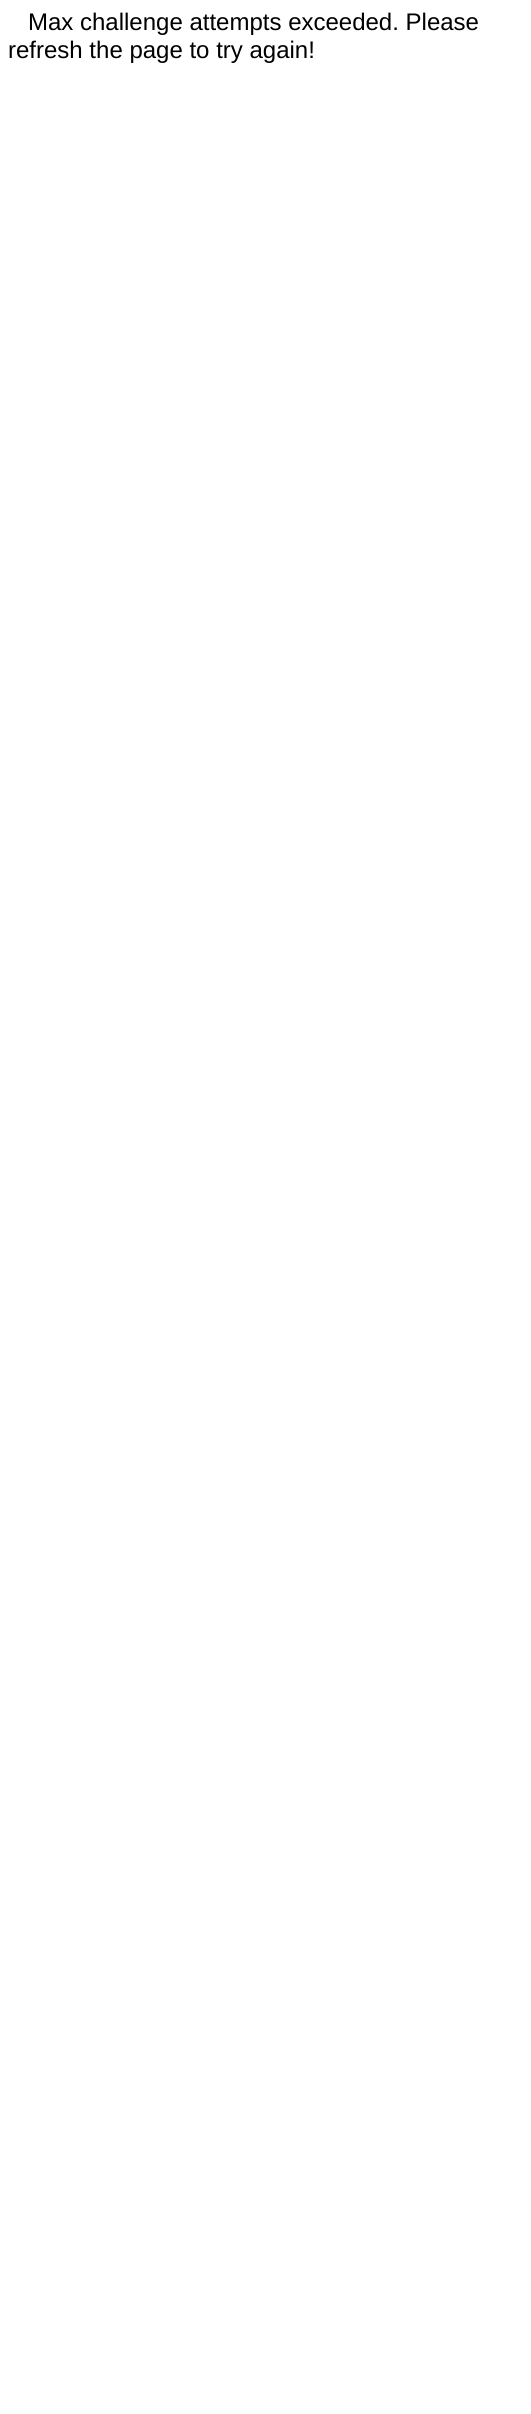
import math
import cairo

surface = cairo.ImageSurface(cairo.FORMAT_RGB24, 531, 2414)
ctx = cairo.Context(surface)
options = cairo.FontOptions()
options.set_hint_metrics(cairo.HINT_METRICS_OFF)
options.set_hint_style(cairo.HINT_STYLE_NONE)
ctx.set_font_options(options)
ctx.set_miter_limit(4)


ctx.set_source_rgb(1, 1, 1)
ctx.paint()
ctx.select_font_face("Liberation Sans")
ctx.set_font_size(24)
ctx.set_source_rgb(0, 0, 0)
ctx.move_to(28, 30)
ctx.show_text("Max challenge attempts exceeded. Please")
ctx.move_to(8, 58)
ctx.show_text("refresh the page to try again!")
surface.write_to_png("page.png")
